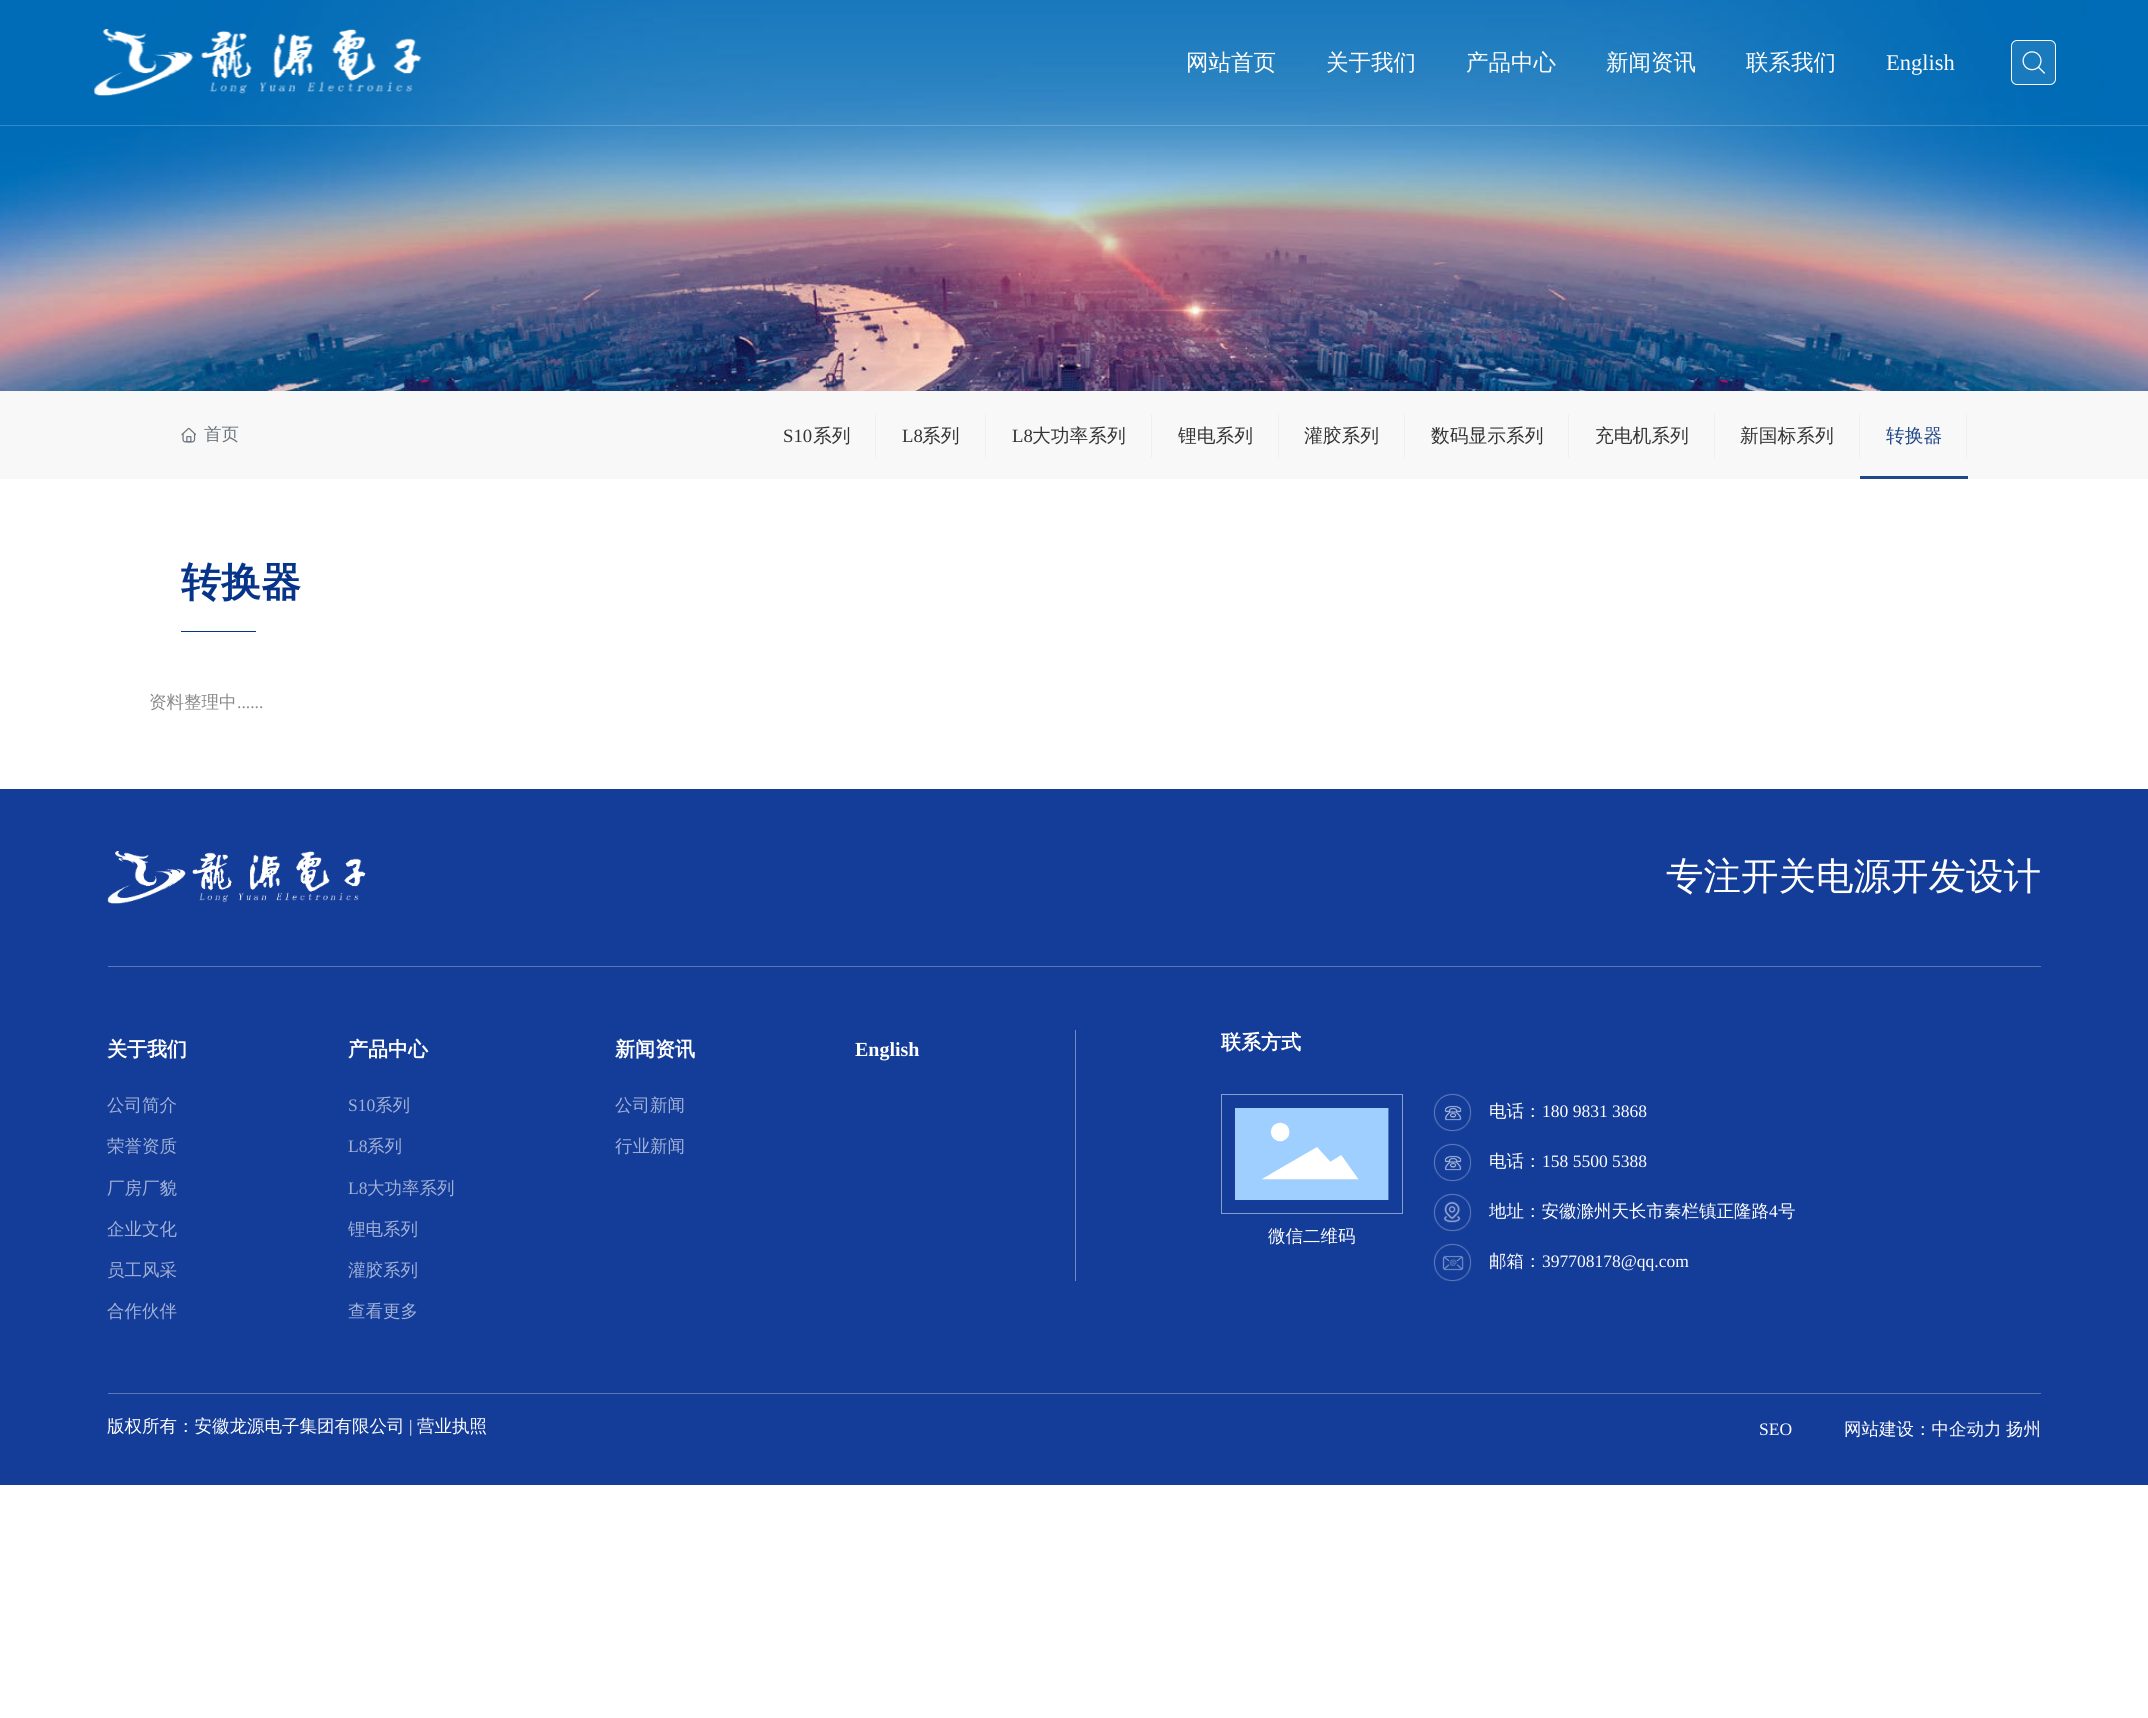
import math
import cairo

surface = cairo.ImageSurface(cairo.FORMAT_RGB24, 2148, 1718)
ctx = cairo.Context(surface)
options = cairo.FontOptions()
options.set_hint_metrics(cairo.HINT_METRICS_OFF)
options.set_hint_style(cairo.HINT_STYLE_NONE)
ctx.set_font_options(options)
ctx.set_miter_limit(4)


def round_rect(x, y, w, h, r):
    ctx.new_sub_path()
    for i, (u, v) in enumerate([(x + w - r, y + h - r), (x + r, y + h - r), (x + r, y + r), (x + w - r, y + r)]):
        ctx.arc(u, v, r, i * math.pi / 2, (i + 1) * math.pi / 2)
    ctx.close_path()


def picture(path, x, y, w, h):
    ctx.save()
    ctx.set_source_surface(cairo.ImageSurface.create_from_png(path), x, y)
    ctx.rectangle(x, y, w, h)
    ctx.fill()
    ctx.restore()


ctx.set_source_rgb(1, 1, 1)
ctx.paint()
picture("img1.png", 0, 0, 2148, 391)
ctx.set_source_rgba(1, 1, 1, 0.2)
ctx.rectangle(0, 125, 2148, 1)
ctx.fill()
picture("img2.png", 94, 29, 328, 67)
ctx.select_font_face("WenQuanYi Zen Hei Medium")
ctx.set_font_size(22.5)
ctx.set_source_rgb(1, 1, 1)
ctx.move_to(1186, 70)
ctx.show_text("网站首页")
ctx.move_to(1326, 70)
ctx.show_text("关于我们")
ctx.move_to(1466, 70)
ctx.show_text("产品中心")
ctx.move_to(1606, 70)
ctx.show_text("新闻资讯")
ctx.move_to(1746, 70)
ctx.show_text("联系我们")
ctx.select_font_face("Liberation Serif")
ctx.move_to(1886, 70)
ctx.show_text("English")
ctx.set_source_rgb(0.102, 0.478, 0.745)
round_rect(2011.5, 40.5, 44, 44, 5.5)
ctx.fill_preserve()
ctx.set_source_rgb(1, 1, 1)
ctx.set_line_width(1)
ctx.stroke()
picture("img3.png", 2022, 51, 23, 23)
ctx.set_source_rgb(0.969, 0.969, 0.969)
ctx.rectangle(0, 391, 2148, 88)
ctx.fill()
picture("img4.png", 181, 428, 15, 15)
ctx.select_font_face("WenQuanYi Zen Hei Medium")
ctx.set_font_size(17.5)
ctx.set_source_rgb(0.424, 0.459, 0.49)
ctx.move_to(204, 440)
ctx.show_text("首页")
ctx.select_font_face("Liberation Serif")
ctx.set_font_size(18.75)
ctx.set_source_rgb(0.2, 0.2, 0.2)
ctx.move_to(783, 442)
ctx.show_text("S10")
ctx.select_font_face("WenQuanYi Zen Hei Medium")
ctx.move_to(813, 442)
ctx.show_text("系列")
ctx.set_source_rgb(0.937, 0.937, 0.937)
ctx.rectangle(875, 414, 1, 44)
ctx.fill()
ctx.select_font_face("Liberation Serif")
ctx.set_source_rgb(0.2, 0.2, 0.2)
ctx.move_to(902, 442)
ctx.show_text("L8")
ctx.select_font_face("WenQuanYi Zen Hei Medium")
ctx.move_to(922, 442)
ctx.show_text("系列")
ctx.set_source_rgb(0.937, 0.937, 0.937)
ctx.rectangle(985, 414, 1, 44)
ctx.fill()
ctx.select_font_face("Liberation Serif")
ctx.set_source_rgb(0.2, 0.2, 0.2)
ctx.move_to(1012, 442)
ctx.show_text("L8")
ctx.select_font_face("WenQuanYi Zen Hei Medium")
ctx.move_to(1032, 442)
ctx.show_text("大功率系列")
ctx.set_source_rgb(0.937, 0.937, 0.937)
ctx.rectangle(1151, 414, 1, 44)
ctx.fill()
ctx.set_source_rgb(0.2, 0.2, 0.2)
ctx.move_to(1178, 442)
ctx.show_text("锂电系列")
ctx.set_source_rgb(0.937, 0.937, 0.937)
ctx.rectangle(1278, 414, 1, 44)
ctx.fill()
ctx.set_source_rgb(0.2, 0.2, 0.2)
ctx.move_to(1304, 442)
ctx.show_text("灌胶系列")
ctx.set_source_rgb(0.937, 0.937, 0.937)
ctx.rectangle(1404, 414, 1, 44)
ctx.fill()
ctx.set_source_rgb(0.2, 0.2, 0.2)
ctx.move_to(1431, 442)
ctx.show_text("数码显示系列")
ctx.set_source_rgb(0.937, 0.937, 0.937)
ctx.rectangle(1568, 414, 1, 44)
ctx.fill()
ctx.set_source_rgb(0.2, 0.2, 0.2)
ctx.move_to(1595, 442)
ctx.show_text("充电机系列")
ctx.set_source_rgb(0.937, 0.937, 0.937)
ctx.rectangle(1714, 414, 1, 44)
ctx.fill()
ctx.set_source_rgb(0.2, 0.2, 0.2)
ctx.move_to(1740, 442)
ctx.show_text("新国标系列")
ctx.set_source_rgb(0.937, 0.937, 0.937)
ctx.rectangle(1859, 414, 1, 44)
ctx.fill()
ctx.set_source_rgb(0.129, 0.278, 0.545)
ctx.move_to(1886, 442)
ctx.show_text("转换器")
ctx.set_source_rgb(0.937, 0.937, 0.937)
ctx.rectangle(1966, 414, 1, 44)
ctx.fill()
ctx.set_source_rgb(0.129, 0.278, 0.545)
ctx.rectangle(1860, 476, 108, 3)
ctx.fill()
ctx.select_font_face("WenQuanYi Zen Hei", cairo.FONT_SLANT_NORMAL, cairo.FONT_WEIGHT_BOLD)
ctx.set_font_size(40)
ctx.set_source_rgb(0.024, 0.204, 0.537)
ctx.move_to(181, 596)
ctx.show_text("转换器")
ctx.rectangle(181, 631, 75, 1)
ctx.fill()
ctx.select_font_face("WenQuanYi Zen Hei Medium")
ctx.set_font_size(17.5)
ctx.set_source_rgb(0.537, 0.537, 0.537)
ctx.move_to(149, 708)
ctx.show_text("资料整理中")
ctx.select_font_face("Liberation Serif")
ctx.move_to(237, 708)
ctx.show_text("......")
ctx.set_source_rgb(0.082, 0.235, 0.6)
ctx.rectangle(0, 789, 2148, 696)
ctx.fill()
picture("img5.png", 107, 851, 259, 53)
ctx.select_font_face("WenQuanYi Zen Hei Medium")
ctx.set_font_size(37.5)
ctx.set_source_rgb(1, 1, 1)
ctx.move_to(1666, 889)
ctx.show_text("专注开关电源开发设计")
ctx.set_source_rgb(0.357, 0.467, 0.722)
ctx.rectangle(108, 966, 1933, 1)
ctx.fill()
ctx.select_font_face("WenQuanYi Zen Hei", cairo.FONT_SLANT_NORMAL, cairo.FONT_WEIGHT_BOLD)
ctx.set_font_size(20)
ctx.set_source_rgb(1, 1, 1)
ctx.move_to(107, 1056)
ctx.show_text("关于我们")
ctx.select_font_face("WenQuanYi Zen Hei Medium")
ctx.set_font_size(17.5)
ctx.set_source_rgb(0.631, 0.694, 0.839)
ctx.move_to(107, 1111)
ctx.show_text("公司简介")
ctx.move_to(107, 1152)
ctx.show_text("荣誉资质")
ctx.move_to(107, 1194)
ctx.show_text("厂房厂貌")
ctx.move_to(107, 1235)
ctx.show_text("企业文化")
ctx.move_to(107, 1276)
ctx.show_text("员工风采")
ctx.move_to(107, 1317)
ctx.show_text("合作伙伴")
ctx.select_font_face("WenQuanYi Zen Hei", cairo.FONT_SLANT_NORMAL, cairo.FONT_WEIGHT_BOLD)
ctx.set_font_size(20)
ctx.set_source_rgb(1, 1, 1)
ctx.move_to(348, 1056)
ctx.show_text("产品中心")
ctx.select_font_face("Liberation Serif")
ctx.set_font_size(17.5)
ctx.set_source_rgb(0.631, 0.694, 0.839)
ctx.move_to(348, 1111)
ctx.show_text("S10")
ctx.select_font_face("WenQuanYi Zen Hei Medium")
ctx.move_to(375, 1111)
ctx.show_text("系列")
ctx.select_font_face("Liberation Serif")
ctx.move_to(348, 1152)
ctx.show_text("L8")
ctx.select_font_face("WenQuanYi Zen Hei Medium")
ctx.move_to(367, 1152)
ctx.show_text("系列")
ctx.select_font_face("Liberation Serif")
ctx.move_to(348, 1194)
ctx.show_text("L8")
ctx.select_font_face("WenQuanYi Zen Hei Medium")
ctx.move_to(367, 1194)
ctx.show_text("大功率系列")
ctx.move_to(348, 1235)
ctx.show_text("锂电系列")
ctx.move_to(348, 1276)
ctx.show_text("灌胶系列")
ctx.move_to(348, 1317)
ctx.show_text("查看更多")
ctx.select_font_face("WenQuanYi Zen Hei", cairo.FONT_SLANT_NORMAL, cairo.FONT_WEIGHT_BOLD)
ctx.set_font_size(20)
ctx.set_source_rgb(1, 1, 1)
ctx.move_to(615, 1056)
ctx.show_text("新闻资讯")
ctx.select_font_face("WenQuanYi Zen Hei Medium")
ctx.set_font_size(17.5)
ctx.set_source_rgb(0.631, 0.694, 0.839)
ctx.move_to(615, 1111)
ctx.show_text("公司新闻")
ctx.move_to(615, 1152)
ctx.show_text("行业新闻")
ctx.select_font_face("Liberation Serif", cairo.FONT_SLANT_NORMAL, cairo.FONT_WEIGHT_BOLD)
ctx.set_font_size(20)
ctx.set_source_rgb(1, 1, 1)
ctx.move_to(855, 1056)
ctx.show_text("English")
ctx.set_source_rgb(0.451, 0.541, 0.761)
ctx.rectangle(1075, 1030, 1, 251)
ctx.fill()
ctx.select_font_face("WenQuanYi Zen Hei", cairo.FONT_SLANT_NORMAL, cairo.FONT_WEIGHT_BOLD)
ctx.set_source_rgb(1, 1, 1)
ctx.move_to(1221, 1049)
ctx.show_text("联系方式")
ctx.rectangle(1221.5, 1094.5, 181, 119)
ctx.set_source_rgb(0.541, 0.62, 0.8)
ctx.stroke()
picture("img6.png", 1235, 1108, 154, 92)
ctx.select_font_face("WenQuanYi Zen Hei Medium")
ctx.set_font_size(17.5)
ctx.set_source_rgb(1, 1, 1)
ctx.move_to(1268, 1242)
ctx.show_text("微信二维码")
picture("img7.png", 1433, 1093, 39, 39)
ctx.move_to(1489, 1117)
ctx.show_text("电话：")
ctx.select_font_face("Liberation Serif")
ctx.move_to(1542, 1117)
ctx.show_text("180 9831 3868")
picture("img7.png", 1433, 1143, 39, 39)
ctx.select_font_face("WenQuanYi Zen Hei Medium")
ctx.move_to(1489, 1167)
ctx.show_text("电话：")
ctx.select_font_face("Liberation Serif")
ctx.move_to(1542, 1167)
ctx.show_text("158 5500 5388")
picture("img8.png", 1433, 1193, 39, 39)
ctx.select_font_face("WenQuanYi Zen Hei Medium")
ctx.move_to(1489, 1217)
ctx.show_text("地址：安徽滁州天长市秦栏镇正隆路")
ctx.select_font_face("Liberation Serif")
ctx.move_to(1769, 1217)
ctx.show_text("4")
ctx.select_font_face("WenQuanYi Zen Hei Medium")
ctx.move_to(1778, 1217)
ctx.show_text("号")
picture("img9.png", 1433, 1243, 39, 39)
ctx.move_to(1489, 1267)
ctx.show_text("邮箱：")
ctx.select_font_face("Liberation Serif")
ctx.move_to(1542, 1267)
ctx.show_text("397708178@qq.com")
ctx.set_source_rgb(0.357, 0.467, 0.722)
ctx.rectangle(108, 1393, 1933, 1)
ctx.fill()
ctx.select_font_face("WenQuanYi Zen Hei Medium")
ctx.set_source_rgb(1, 1, 1)
ctx.move_to(107, 1432)
ctx.show_text("版权所有：安徽龙源电子集团有限公司")
ctx.select_font_face("Liberation Serif")
ctx.move_to(409, 1432)
ctx.show_text("|")
ctx.select_font_face("WenQuanYi Zen Hei Medium")
ctx.move_to(417, 1432)
ctx.show_text("营业执照")
ctx.select_font_face("Liberation Serif")
ctx.move_to(1759, 1435)
ctx.show_text("SEO")
ctx.select_font_face("WenQuanYi Zen Hei Medium")
ctx.move_to(1844, 1435)
ctx.show_text("网站建设：中企动力")
ctx.move_to(2006, 1435)
ctx.show_text("扬州")
surface.write_to_png("page.png")
